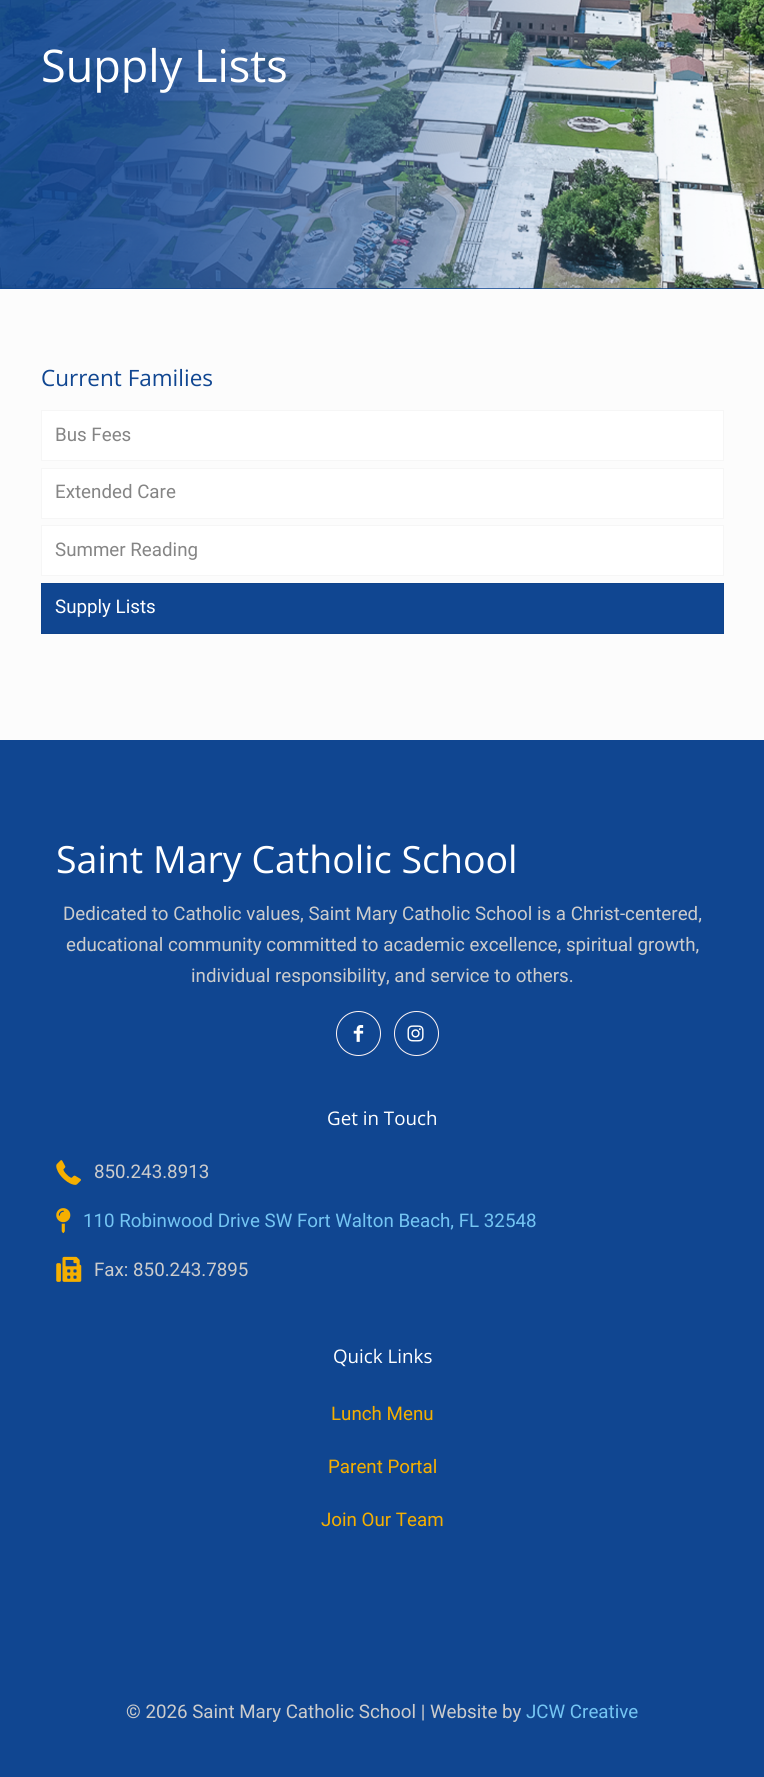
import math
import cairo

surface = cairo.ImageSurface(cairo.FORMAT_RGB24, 764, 1777)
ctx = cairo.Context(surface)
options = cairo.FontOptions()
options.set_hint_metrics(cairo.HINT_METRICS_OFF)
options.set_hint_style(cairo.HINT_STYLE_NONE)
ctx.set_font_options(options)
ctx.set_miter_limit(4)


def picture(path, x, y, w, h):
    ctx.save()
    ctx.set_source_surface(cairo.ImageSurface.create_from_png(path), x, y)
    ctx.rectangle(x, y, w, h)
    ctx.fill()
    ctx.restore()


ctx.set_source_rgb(0.988, 0.988, 0.988)
ctx.paint()
ctx.set_source_rgb(0.063, 0.275, 0.569)
ctx.rectangle(0, 288, 764, 1)
ctx.fill()
picture("img1.png", 0, 0, 764, 289)
ctx.select_font_face("Open Sans")
ctx.set_font_size(45)
ctx.set_source_rgb(1, 1, 1)
ctx.move_to(41, 82)
ctx.show_text("Supply Lists")
ctx.set_font_size(22.5)
ctx.set_source_rgb(0.063, 0.275, 0.569)
ctx.move_to(41, 386)
ctx.show_text("Current Families")
ctx.set_source_rgb(1, 1, 1)
ctx.rectangle(41.5, 410.5, 682, 50)
ctx.fill_preserve()
ctx.set_source_rgb(0.961, 0.961, 0.961)
ctx.set_line_width(1)
ctx.stroke()
ctx.select_font_face("Roboto")
ctx.set_font_size(18.75)
ctx.set_source_rgb(0.522, 0.522, 0.522)
ctx.move_to(55, 441)
ctx.show_text("Bus Fees")
ctx.set_source_rgb(1, 1, 1)
ctx.rectangle(41.5, 468.5, 682, 50)
ctx.fill_preserve()
ctx.set_source_rgb(0.961, 0.961, 0.961)
ctx.stroke()
ctx.set_source_rgb(0.522, 0.522, 0.522)
ctx.move_to(55, 498)
ctx.show_text("Extended Care")
ctx.set_source_rgb(1, 1, 1)
ctx.rectangle(41.5, 525.5, 682, 50)
ctx.fill_preserve()
ctx.set_source_rgb(0.961, 0.961, 0.961)
ctx.stroke()
ctx.set_source_rgb(0.522, 0.522, 0.522)
ctx.move_to(55, 556)
ctx.show_text("Summer Reading")
ctx.set_source_rgb(0.063, 0.275, 0.569)
ctx.rectangle(41.5, 583.5, 682, 50)
ctx.fill_preserve()
ctx.set_source_rgb(0.059, 0.263, 0.545)
ctx.stroke()
ctx.set_source_rgb(1, 1, 1)
ctx.move_to(55, 613)
ctx.show_text("Supply Lists")
ctx.set_source_rgb(0.063, 0.275, 0.569)
ctx.rectangle(0, 740, 764, 1037)
ctx.fill()
ctx.select_font_face("Open Sans")
ctx.set_font_size(37.5)
ctx.set_source_rgb(1, 1, 1)
ctx.move_to(56, 873)
ctx.show_text("Saint Mary Catholic School")
ctx.select_font_face("Roboto")
ctx.set_font_size(18.75)
ctx.set_source_rgb(0.8, 0.8, 0.8)
ctx.move_to(63, 920)
ctx.show_text("Dedicated to Catholic values, Saint Mary Catholic School is a Christ-centered,")
ctx.move_to(66, 951)
ctx.show_text("educational community committed to academic excellence, spiritual growth,")
ctx.move_to(191, 982)
ctx.show_text("individual responsibility, and service to others.")
ctx.new_path()
ctx.arc(358.5, 1033.5, 22, 0, 2 * math.pi)
ctx.set_source_rgb(1, 0.957, 0.957)
ctx.stroke()
picture("img2.png", 353, 1025, 11, 17)
ctx.arc(416.5, 1033.5, 22, 0, 2 * math.pi)
ctx.stroke()
picture("img3.png", 407, 1025, 17, 17)
ctx.select_font_face("Open Sans")
ctx.set_source_rgb(1, 1, 1)
ctx.move_to(327, 1125)
ctx.show_text("Get in Touch")
picture("img4.png", 56, 1160, 25, 25)
ctx.select_font_face("Roboto")
ctx.set_source_rgb(0.8, 0.8, 0.8)
ctx.move_to(94, 1178)
ctx.show_text("850.243.8913")
picture("img5.png", 56, 1208, 15, 26)
ctx.set_source_rgb(0.455, 0.773, 0.953)
ctx.move_to(83, 1227)
ctx.show_text("110 Robinwood Drive SW Fort Walton Beach, FL 32548")
picture("img6.png", 56, 1256, 26, 26)
ctx.set_source_rgb(0.8, 0.8, 0.8)
ctx.move_to(94, 1276)
ctx.show_text("Fax: 850.243.7895")
ctx.select_font_face("Open Sans")
ctx.set_source_rgb(1, 1, 1)
ctx.move_to(333, 1363)
ctx.show_text("Quick Links")
ctx.select_font_face("Roboto")
ctx.set_source_rgb(0.961, 0.686, 0)
ctx.move_to(331, 1420)
ctx.show_text("Lunch Menu")
ctx.move_to(328, 1473)
ctx.show_text("Parent Portal")
ctx.move_to(321, 1526)
ctx.show_text("Join Our Team")
ctx.set_source_rgb(0.8, 0.8, 0.8)
ctx.move_to(126, 1718)
ctx.show_text("© 2026 Saint Mary Catholic School | Website by")
ctx.set_source_rgb(0.455, 0.773, 0.953)
ctx.move_to(526, 1718)
ctx.show_text("JCW Creative")
surface.write_to_png("page.png")
